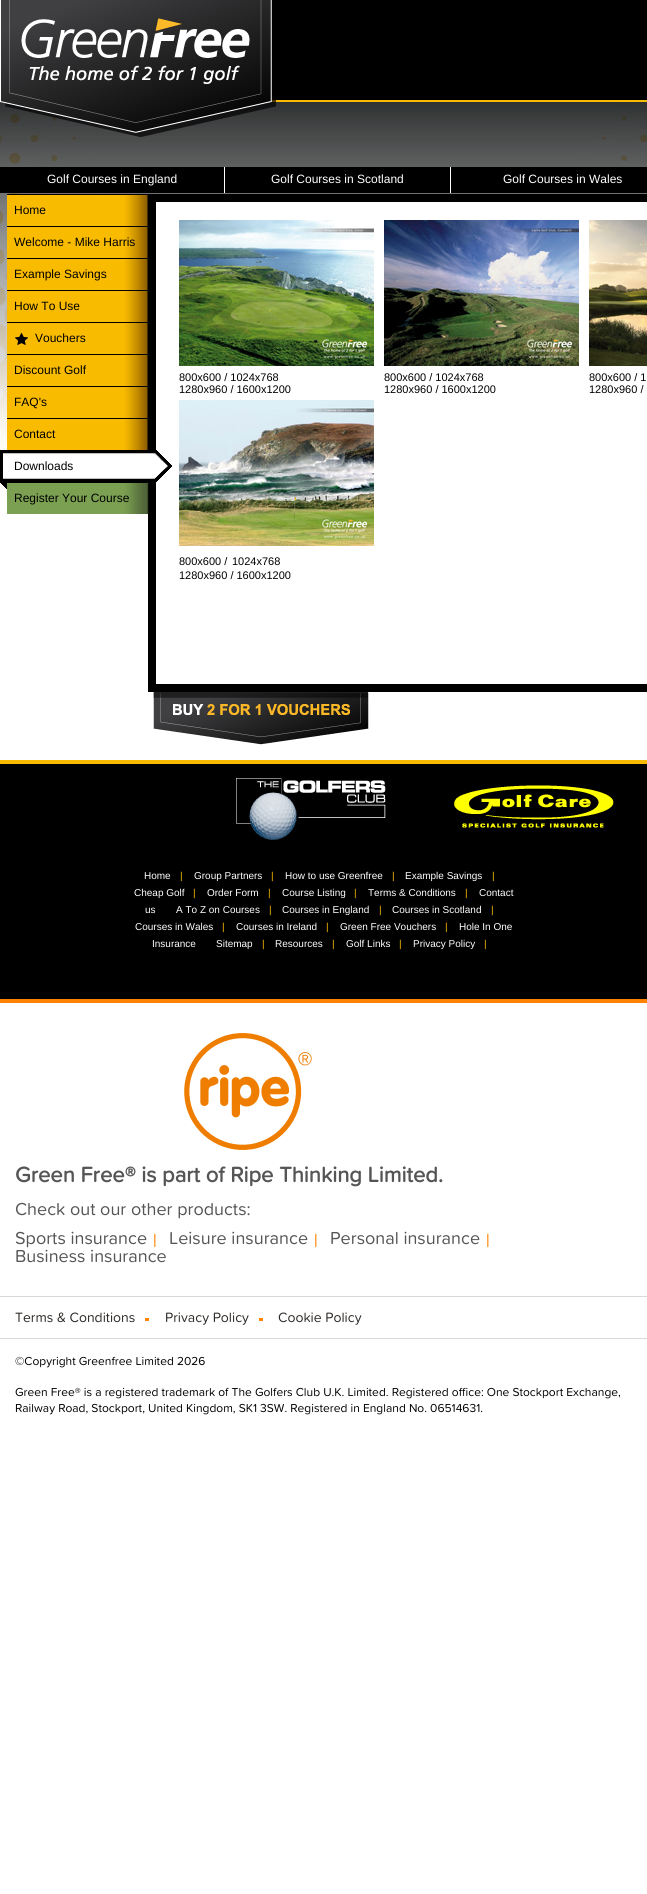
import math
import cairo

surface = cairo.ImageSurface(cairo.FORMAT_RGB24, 647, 1894)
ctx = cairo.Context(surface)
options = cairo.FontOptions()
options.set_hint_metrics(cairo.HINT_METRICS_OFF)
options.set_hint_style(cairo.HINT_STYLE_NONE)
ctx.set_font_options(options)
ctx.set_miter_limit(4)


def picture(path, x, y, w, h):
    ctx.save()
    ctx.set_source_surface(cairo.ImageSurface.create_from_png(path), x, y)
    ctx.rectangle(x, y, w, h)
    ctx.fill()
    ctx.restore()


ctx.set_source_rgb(1, 1, 1)
ctx.paint()
picture("img1.png", 271, 0, 376, 38)
picture("img2.png", 0, 102, 647, 403)
picture("img3.png", 271, 38, 376, 64)
picture("img4.png", 0, 0, 276, 137)
ctx.set_source_rgb(0, 0, 0)
ctx.rectangle(0, 167, 224, 26)
ctx.fill()
ctx.set_source_rgb(1, 1, 1)
ctx.rectangle(224, 167, 1, 26)
ctx.fill()
ctx.select_font_face("Liberation Sans")
ctx.set_font_size(12)
ctx.move_to(47, 183)
ctx.show_text("Golf Courses in England")
ctx.set_source_rgb(0, 0, 0)
ctx.rectangle(225, 167, 225, 26)
ctx.fill()
ctx.set_source_rgb(1, 1, 1)
ctx.rectangle(450, 167, 1, 26)
ctx.fill()
ctx.move_to(271, 183)
ctx.show_text("Golf Courses in Scotland")
ctx.set_source_rgb(0, 0, 0)
ctx.rectangle(451, 167, 196, 26)
ctx.fill()
ctx.set_source_rgb(1, 1, 1)
ctx.move_to(503, 183)
ctx.show_text("Golf Courses in Wales")
picture("img5.png", 7, 194, 141, 32)
ctx.set_source_rgb(0, 0, 0)
ctx.move_to(14, 214)
ctx.show_text("Home")
picture("img5.png", 7, 226, 141, 32)
ctx.move_to(14, 246)
ctx.show_text("Welcome - Mike Harris")
picture("img5.png", 7, 258, 141, 32)
ctx.move_to(14, 278)
ctx.show_text("Example Savings")
picture("img5.png", 7, 290, 141, 32)
ctx.move_to(14, 310)
ctx.show_text("How To Use")
picture("img6.png", 7, 322, 141, 32)
ctx.move_to(35, 342)
ctx.show_text("Vouchers")
picture("img5.png", 7, 354, 141, 32)
ctx.move_to(14, 374)
ctx.show_text("Discount Golf")
picture("img5.png", 7, 386, 141, 32)
ctx.move_to(14, 406)
ctx.show_text("FAQ's")
picture("img5.png", 7, 418, 141, 32)
ctx.move_to(14, 438)
ctx.show_text("Contact")
ctx.set_source_rgb(1, 1, 1)
ctx.rectangle(156, 202, 491, 286)
ctx.fill()
ctx.rectangle(152, 198, 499, 490)
ctx.set_source_rgb(0, 0, 0)
ctx.set_line_width(8)
ctx.stroke()
picture("img7.png", 0, 450, 172, 32)
ctx.move_to(14, 470)
ctx.show_text("Downloads")
picture("img8.png", 0, 482, 149, 32)
ctx.move_to(14, 502)
ctx.show_text("Register Your Course")
picture("img9.png", 179, 220, 195, 146)
ctx.set_font_size(11)
ctx.move_to(179, 381)
ctx.show_text("800x600 / 1024x768")
ctx.move_to(179, 393)
ctx.show_text("1280x960 / 1600x1200")
picture("img10.png", 384, 220, 195, 146)
ctx.move_to(384, 381)
ctx.show_text("800x600 / 1024x768")
ctx.move_to(384, 393)
ctx.show_text("1280x960 / 1600x1200")
picture("img11.png", 589, 220, 58, 146)
ctx.move_to(589, 381)
ctx.show_text("800x600 / 1")
ctx.move_to(589, 393)
ctx.show_text("1280x960 /")
picture("img12.png", 179, 400, 195, 146)
ctx.move_to(179, 565)
ctx.show_text("800x600 /")
ctx.move_to(232, 565)
ctx.show_text("1024x768")
ctx.move_to(179, 579)
ctx.show_text("1280x960 / 1600x1200")
picture("img13.png", 153, 692, 216, 53)
ctx.rectangle(0, 764, 647, 235)
ctx.fill()
ctx.set_source_rgb(0.976, 0.733, 0)
ctx.rectangle(0, 760, 647, 4)
ctx.fill()
picture("img14.png", 236, 778, 150, 63)
picture("img15.png", 451, 785, 166, 48)
ctx.set_font_size(10)
ctx.set_source_rgb(1, 1, 1)
ctx.move_to(144, 879)
ctx.show_text("Home")
ctx.set_source_rgb(0.976, 0.733, 0)
ctx.move_to(180, 879)
ctx.show_text("|")
ctx.set_source_rgb(1, 1, 1)
ctx.move_to(194, 879)
ctx.show_text("Group Partners")
ctx.set_source_rgb(0.976, 0.733, 0)
ctx.move_to(271, 879)
ctx.show_text("|")
ctx.set_source_rgb(1, 1, 1)
ctx.move_to(285, 879)
ctx.show_text("How to use Greenfree")
ctx.set_source_rgb(0.976, 0.733, 0)
ctx.move_to(392, 879)
ctx.show_text("|")
ctx.set_source_rgb(1, 1, 1)
ctx.move_to(405, 879)
ctx.show_text("Example Savings")
ctx.set_source_rgb(0.976, 0.733, 0)
ctx.move_to(492, 879)
ctx.show_text("|")
ctx.set_source_rgb(1, 1, 1)
ctx.move_to(134, 896)
ctx.show_text("Cheap Golf")
ctx.set_source_rgb(0.976, 0.733, 0)
ctx.move_to(193, 896)
ctx.show_text("|")
ctx.set_source_rgb(1, 1, 1)
ctx.move_to(207, 896)
ctx.show_text("Order Form")
ctx.set_source_rgb(0.976, 0.733, 0)
ctx.move_to(268, 896)
ctx.show_text("|")
ctx.set_source_rgb(1, 1, 1)
ctx.move_to(282, 896)
ctx.show_text("Course Listing")
ctx.set_source_rgb(0.976, 0.733, 0)
ctx.move_to(354, 896)
ctx.show_text("|")
ctx.set_source_rgb(1, 1, 1)
ctx.move_to(368, 896)
ctx.show_text("Terms & Conditions")
ctx.set_source_rgb(0.976, 0.733, 0)
ctx.move_to(465, 896)
ctx.show_text("|")
ctx.set_source_rgb(1, 1, 1)
ctx.move_to(479, 896)
ctx.show_text("Contact")
ctx.move_to(145, 913)
ctx.show_text("us")
ctx.move_to(176, 913)
ctx.show_text("A To Z on Courses")
ctx.set_source_rgb(0.976, 0.733, 0)
ctx.move_to(269, 913)
ctx.show_text("|")
ctx.set_source_rgb(1, 1, 1)
ctx.move_to(282, 913)
ctx.show_text("Courses in England")
ctx.set_source_rgb(0.976, 0.733, 0)
ctx.move_to(379, 913)
ctx.show_text("|")
ctx.set_source_rgb(1, 1, 1)
ctx.move_to(392, 913)
ctx.show_text("Courses in Scotland")
ctx.set_source_rgb(0.976, 0.733, 0)
ctx.move_to(491, 913)
ctx.show_text("|")
ctx.set_source_rgb(1, 1, 1)
ctx.move_to(135, 930)
ctx.show_text("Courses in Wales")
ctx.set_source_rgb(0.976, 0.733, 0)
ctx.move_to(222, 930)
ctx.show_text("|")
ctx.set_source_rgb(1, 1, 1)
ctx.move_to(236, 930)
ctx.show_text("Courses in Ireland")
ctx.set_source_rgb(0.976, 0.733, 0)
ctx.move_to(326, 930)
ctx.show_text("|")
ctx.set_source_rgb(1, 1, 1)
ctx.move_to(340, 930)
ctx.show_text("Green Free Vouchers")
ctx.set_source_rgb(0.976, 0.733, 0)
ctx.move_to(445, 930)
ctx.show_text("|")
ctx.set_source_rgb(1, 1, 1)
ctx.move_to(459, 930)
ctx.show_text("Hole In One")
ctx.move_to(152, 947)
ctx.show_text("Insurance")
ctx.move_to(216, 947)
ctx.show_text("Sitemap")
ctx.set_source_rgb(0.976, 0.733, 0)
ctx.move_to(262, 947)
ctx.show_text("|")
ctx.set_source_rgb(1, 1, 1)
ctx.move_to(275, 947)
ctx.show_text("Resources")
ctx.set_source_rgb(0.976, 0.733, 0)
ctx.move_to(332, 947)
ctx.show_text("|")
ctx.set_source_rgb(1, 1, 1)
ctx.move_to(346, 947)
ctx.show_text("Golf Links")
ctx.set_source_rgb(0.976, 0.733, 0)
ctx.move_to(399, 947)
ctx.show_text("|")
ctx.set_source_rgb(1, 1, 1)
ctx.move_to(413, 947)
ctx.show_text("Privacy Policy")
ctx.set_source_rgb(0.976, 0.733, 0)
ctx.move_to(484, 947)
ctx.show_text("|")
ctx.set_source_rgb(1, 0.51, 0)
ctx.rectangle(0, 999, 647, 4)
ctx.fill()
picture("img16.png", 184, 1033, 128, 117)
ctx.select_font_face("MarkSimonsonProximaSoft", cairo.FONT_SLANT_NORMAL, cairo.FONT_WEIGHT_BOLD)
ctx.set_font_size(22)
ctx.set_source_rgb(0.333, 0.333, 0.333)
ctx.move_to(15, 1182)
ctx.show_text("Green Free® is part of Ripe Thinking Limited.")
ctx.select_font_face("MarkSimonsonProximaSoft")
ctx.set_font_size(18)
ctx.move_to(15, 1215)
ctx.show_text("Check out our other products:")
ctx.move_to(15, 1244)
ctx.show_text("Sports insurance")
ctx.select_font_face("Liberation Sans")
ctx.set_font_size(14)
ctx.set_source_rgb(1, 0.51, 0)
ctx.move_to(153, 1244)
ctx.show_text("|")
ctx.select_font_face("MarkSimonsonProximaSoft")
ctx.set_font_size(18)
ctx.set_source_rgb(0.333, 0.333, 0.333)
ctx.move_to(169, 1244)
ctx.show_text("Leisure insurance")
ctx.select_font_face("Liberation Sans")
ctx.set_font_size(14)
ctx.set_source_rgb(1, 0.51, 0)
ctx.move_to(314, 1244)
ctx.show_text("|")
ctx.select_font_face("MarkSimonsonProximaSoft")
ctx.set_font_size(18)
ctx.set_source_rgb(0.333, 0.333, 0.333)
ctx.move_to(330, 1244)
ctx.show_text("Personal insurance")
ctx.select_font_face("Liberation Sans")
ctx.set_font_size(14)
ctx.set_source_rgb(1, 0.51, 0)
ctx.move_to(486, 1244)
ctx.show_text("|")
ctx.select_font_face("MarkSimonsonProximaSoft")
ctx.set_font_size(18)
ctx.set_source_rgb(0.333, 0.333, 0.333)
ctx.move_to(15, 1262)
ctx.show_text("Business insurance")
ctx.set_source_rgb(0.847, 0.847, 0.847)
ctx.rectangle(0, 1296, 647, 1)
ctx.fill()
ctx.rectangle(0, 1338, 647, 1)
ctx.fill()
ctx.set_font_size(14)
ctx.set_source_rgb(0.176, 0.161, 0.149)
ctx.move_to(15, 1322)
ctx.show_text("Terms & Conditions")
ctx.set_source_rgb(1, 0.51, 0)
ctx.rectangle(145, 1318, 4, 3)
ctx.fill()
ctx.set_source_rgb(0.176, 0.161, 0.149)
ctx.move_to(165, 1322)
ctx.show_text("Privacy Policy")
ctx.set_source_rgb(1, 0.51, 0)
ctx.rectangle(259, 1318, 4, 3)
ctx.fill()
ctx.set_source_rgb(0.176, 0.161, 0.149)
ctx.move_to(278, 1322)
ctx.show_text("Cookie Policy")
ctx.set_font_size(12)
ctx.set_source_rgb(0, 0, 0)
ctx.move_to(15, 1365)
ctx.show_text("©Copyright Greenfree Limited 2026")
ctx.move_to(15, 1396)
ctx.show_text("Green Free® is a registered trademark of The Golfers Club U.K. Limited. Registered office: One Stockport Exchange,")
ctx.move_to(15, 1412)
ctx.show_text("Railway Road, Stockport, United Kingdom, SK1 3SW. Registered in England No. 06514631.")
surface.write_to_png("page.png")
